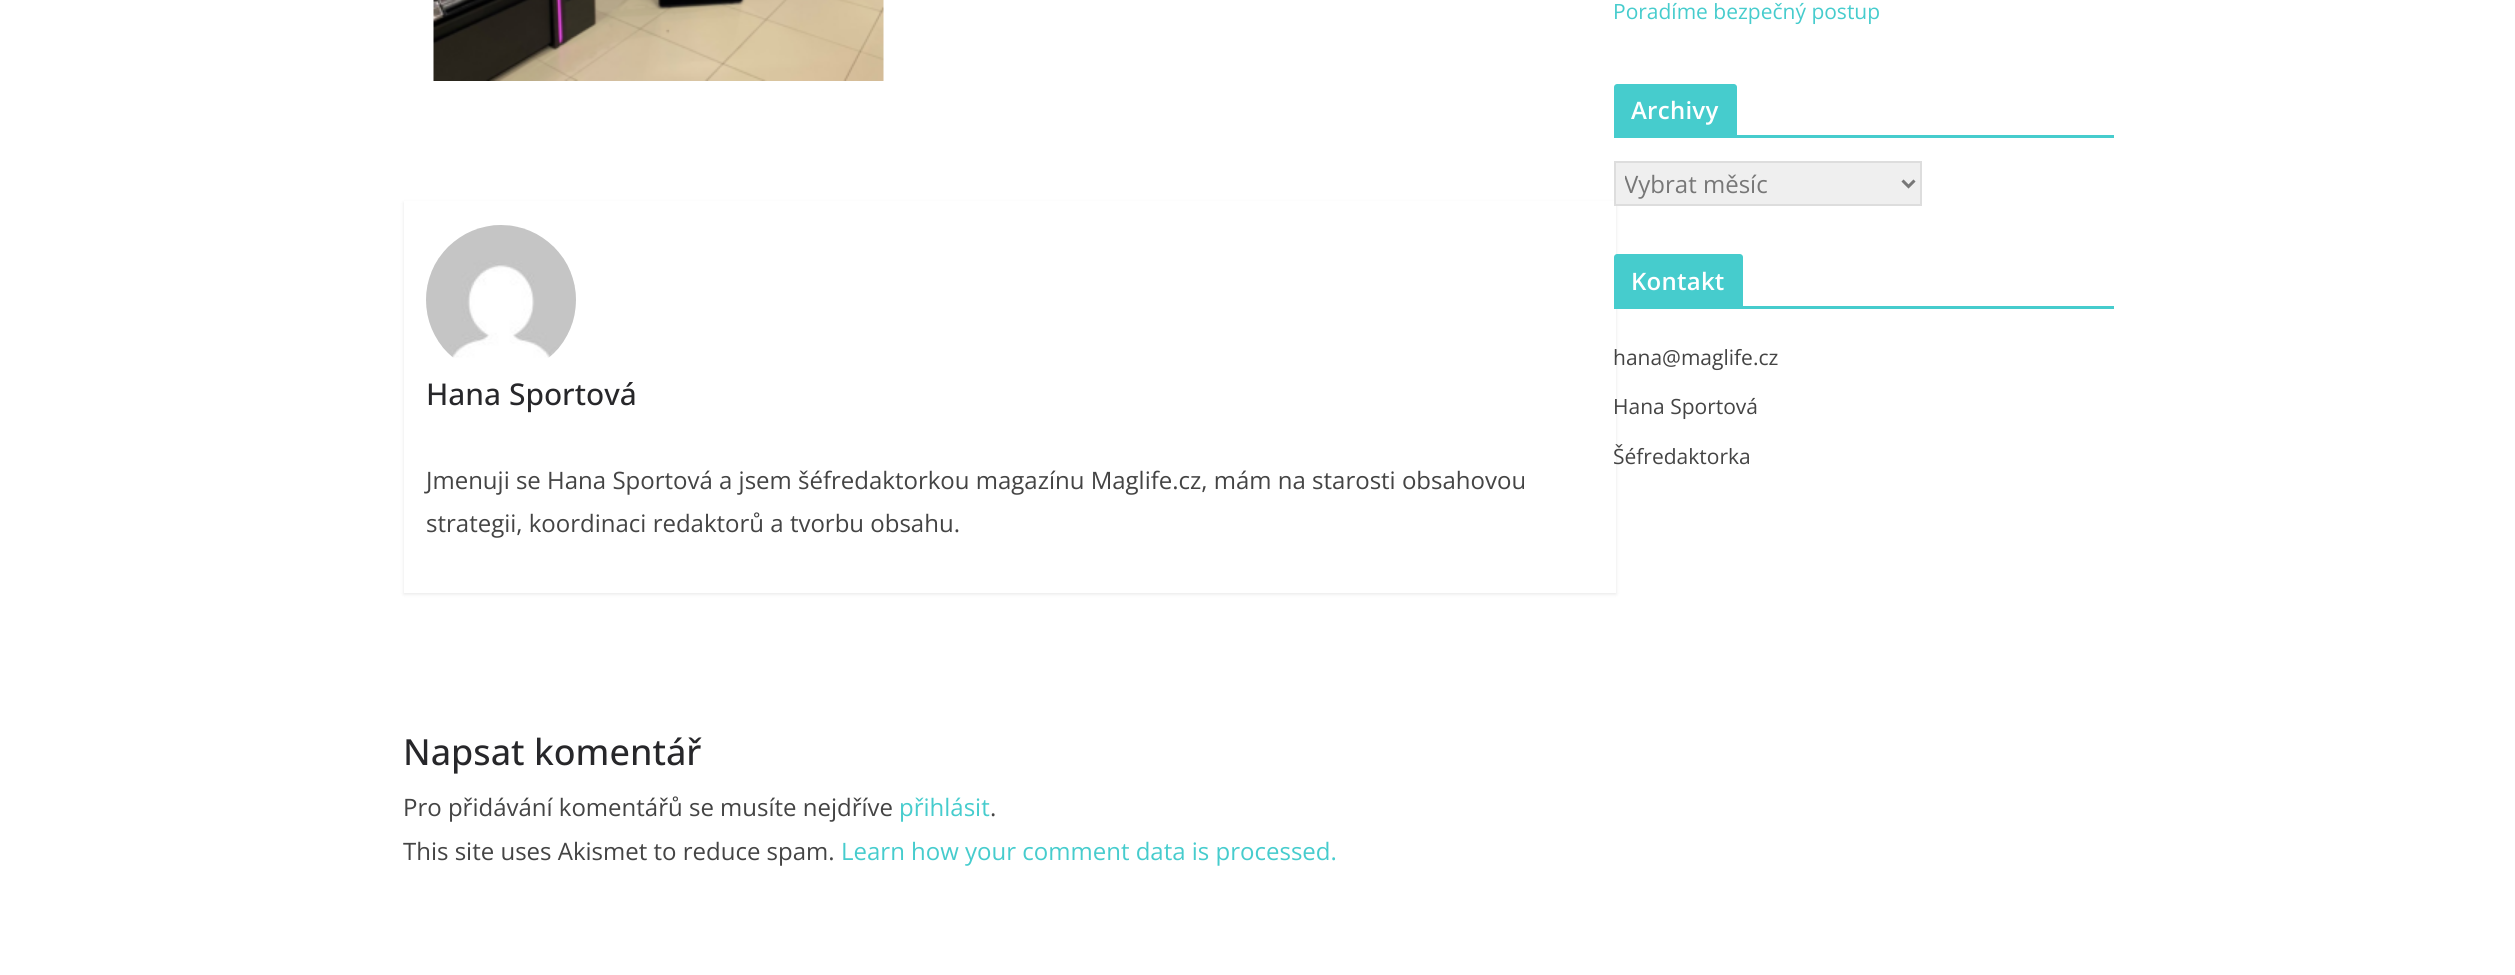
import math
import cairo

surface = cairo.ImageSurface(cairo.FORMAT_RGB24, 2515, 975)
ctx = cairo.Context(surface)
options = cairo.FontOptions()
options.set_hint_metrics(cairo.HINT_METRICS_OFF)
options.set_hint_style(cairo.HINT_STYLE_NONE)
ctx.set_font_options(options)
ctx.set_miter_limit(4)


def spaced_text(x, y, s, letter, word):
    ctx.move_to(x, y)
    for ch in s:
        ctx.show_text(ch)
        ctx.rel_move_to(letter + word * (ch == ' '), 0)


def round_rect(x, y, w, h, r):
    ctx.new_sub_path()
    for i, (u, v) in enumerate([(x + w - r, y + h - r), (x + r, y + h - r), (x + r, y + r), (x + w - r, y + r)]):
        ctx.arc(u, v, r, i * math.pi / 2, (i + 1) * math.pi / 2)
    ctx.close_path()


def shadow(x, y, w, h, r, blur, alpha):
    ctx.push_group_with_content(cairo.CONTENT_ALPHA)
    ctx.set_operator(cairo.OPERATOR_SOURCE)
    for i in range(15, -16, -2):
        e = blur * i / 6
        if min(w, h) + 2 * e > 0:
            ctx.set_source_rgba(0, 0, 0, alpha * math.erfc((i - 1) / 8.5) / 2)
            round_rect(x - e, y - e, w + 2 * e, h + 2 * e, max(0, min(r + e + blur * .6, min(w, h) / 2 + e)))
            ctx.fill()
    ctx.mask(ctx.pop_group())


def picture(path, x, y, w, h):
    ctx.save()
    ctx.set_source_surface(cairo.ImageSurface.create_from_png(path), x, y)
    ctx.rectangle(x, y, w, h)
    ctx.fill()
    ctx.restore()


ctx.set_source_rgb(1, 1, 1)
ctx.paint()
ctx.select_font_face("Open Sans")
ctx.set_font_size(21)
ctx.set_source_rgb(0.275, 0.8, 0.804)
ctx.move_to(1613, 19)
ctx.show_text("Poradíme bezpečný postup")
ctx.rectangle(1614, 135, 500, 3)
ctx.fill()
ctx.new_path()
ctx.move_to(1617, 84)
ctx.line_to(1734, 84)
ctx.curve_to(1735.5, 84, 1737, 85.5, 1737, 87)
ctx.line_to(1737, 135)
ctx.line_to(1614, 135)
ctx.line_to(1614, 87)
ctx.curve_to(1614, 85.5, 1615.5, 84, 1617, 84)
ctx.close_path()
ctx.fill()
ctx.select_font_face("Open Sans SemiBold")
ctx.set_font_size(24)
ctx.set_source_rgb(1, 1, 1)
spaced_text(1631, 119, "Archivy", 0.25, 0)
ctx.save()
ctx.set_fill_rule(cairo.FILL_RULE_EVEN_ODD)
ctx.new_path()
ctx.move_to(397, 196)
ctx.line_to(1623, 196)
ctx.line_to(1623, 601)
ctx.line_to(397, 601)
ctx.close_path()
ctx.move_to(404, 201)
ctx.line_to(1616, 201)
ctx.line_to(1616, 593)
ctx.line_to(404, 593)
ctx.close_path()
ctx.clip()
ctx.set_source_rgb(0, 0, 0)
shadow(404, 203, 1212, 391, 0, 2, 0.1)
ctx.restore()
ctx.set_source_rgb(0.937, 0.937, 0.937)
ctx.rectangle(1615, 162, 306, 43)
ctx.fill_preserve()
ctx.set_source_rgb(0.867, 0.867, 0.867)
ctx.stroke()
ctx.new_path()
ctx.move_to(1902.5, 180.5)
ctx.line_to(1908.5, 186.5)
ctx.line_to(1914.5, 180.5)
ctx.set_source_rgb(0.467, 0.467, 0.467)
ctx.set_line_width(3)
ctx.stroke()
ctx.save()
ctx.rectangle(1625, 165, 268, 36)
ctx.clip()
ctx.select_font_face("Open Sans")
ctx.move_to(1624, 193)
ctx.show_text("Vybrat měsíc")
ctx.restore()
ctx.set_source_rgb(0.275, 0.8, 0.804)
ctx.rectangle(1614, 306, 500, 3)
ctx.fill()
ctx.new_path()
ctx.move_to(1617, 254)
ctx.line_to(1740, 254)
ctx.curve_to(1741.5, 254, 1743, 255.5, 1743, 257)
ctx.line_to(1743, 306)
ctx.line_to(1614, 306)
ctx.line_to(1614, 257)
ctx.curve_to(1614, 255.5, 1615.5, 254, 1617, 254)
ctx.close_path()
ctx.fill()
ctx.set_source_rgb(1, 1, 1)
spaced_text(1631, 290, "Kontakt", 0.25, 0)
ctx.select_font_face("Open Sans")
ctx.set_font_size(21)
ctx.set_source_rgb(0.267, 0.267, 0.267)
ctx.move_to(1613, 365)
ctx.show_text("hana@maglife.cz")
ctx.move_to(1613, 414)
ctx.show_text("Hana Sportová")
ctx.move_to(1613, 464)
ctx.show_text("Šéfredaktorka")
picture("img1.png", 433, 0, 451, 81)
picture("img2.png", 426, 225, 150, 133)
ctx.select_font_face("Open Sans Medium")
ctx.set_font_size(30)
ctx.set_source_rgb(0.153, 0.153, 0.165)
ctx.move_to(426, 405)
ctx.show_text("Hana Sportová")
ctx.select_font_face("Open Sans")
ctx.set_font_size(24)
ctx.set_source_rgb(0.267, 0.267, 0.267)
ctx.move_to(426, 489)
ctx.show_text("Jmenuji se Hana Sportová a jsem šéfredaktorkou magazínu Maglife.cz, mám na starosti obsahovou")
ctx.move_to(426, 532)
ctx.show_text("strategii, koordinaci redaktorů a tvorbu obsahu.")
ctx.select_font_face("Open Sans Medium")
ctx.set_font_size(36)
ctx.set_source_rgb(0.153, 0.153, 0.165)
ctx.move_to(403, 765)
ctx.show_text("Napsat komentář")
ctx.select_font_face("Open Sans")
ctx.set_font_size(24)
ctx.set_source_rgb(0.267, 0.267, 0.267)
ctx.move_to(403, 816)
ctx.show_text("Pro přidávání komentářů se musíte nejdříve")
ctx.set_source_rgb(0.275, 0.8, 0.804)
ctx.move_to(899, 816)
ctx.show_text("přihlásit")
ctx.set_source_rgb(0.267, 0.267, 0.267)
ctx.move_to(990, 816)
ctx.show_text(".")
ctx.move_to(403, 860)
ctx.show_text("This site uses Akismet to reduce spam.")
ctx.set_source_rgb(0.275, 0.8, 0.804)
ctx.move_to(841, 860)
ctx.show_text("Learn how your comment data is processed.")
surface.write_to_png("page.png")
